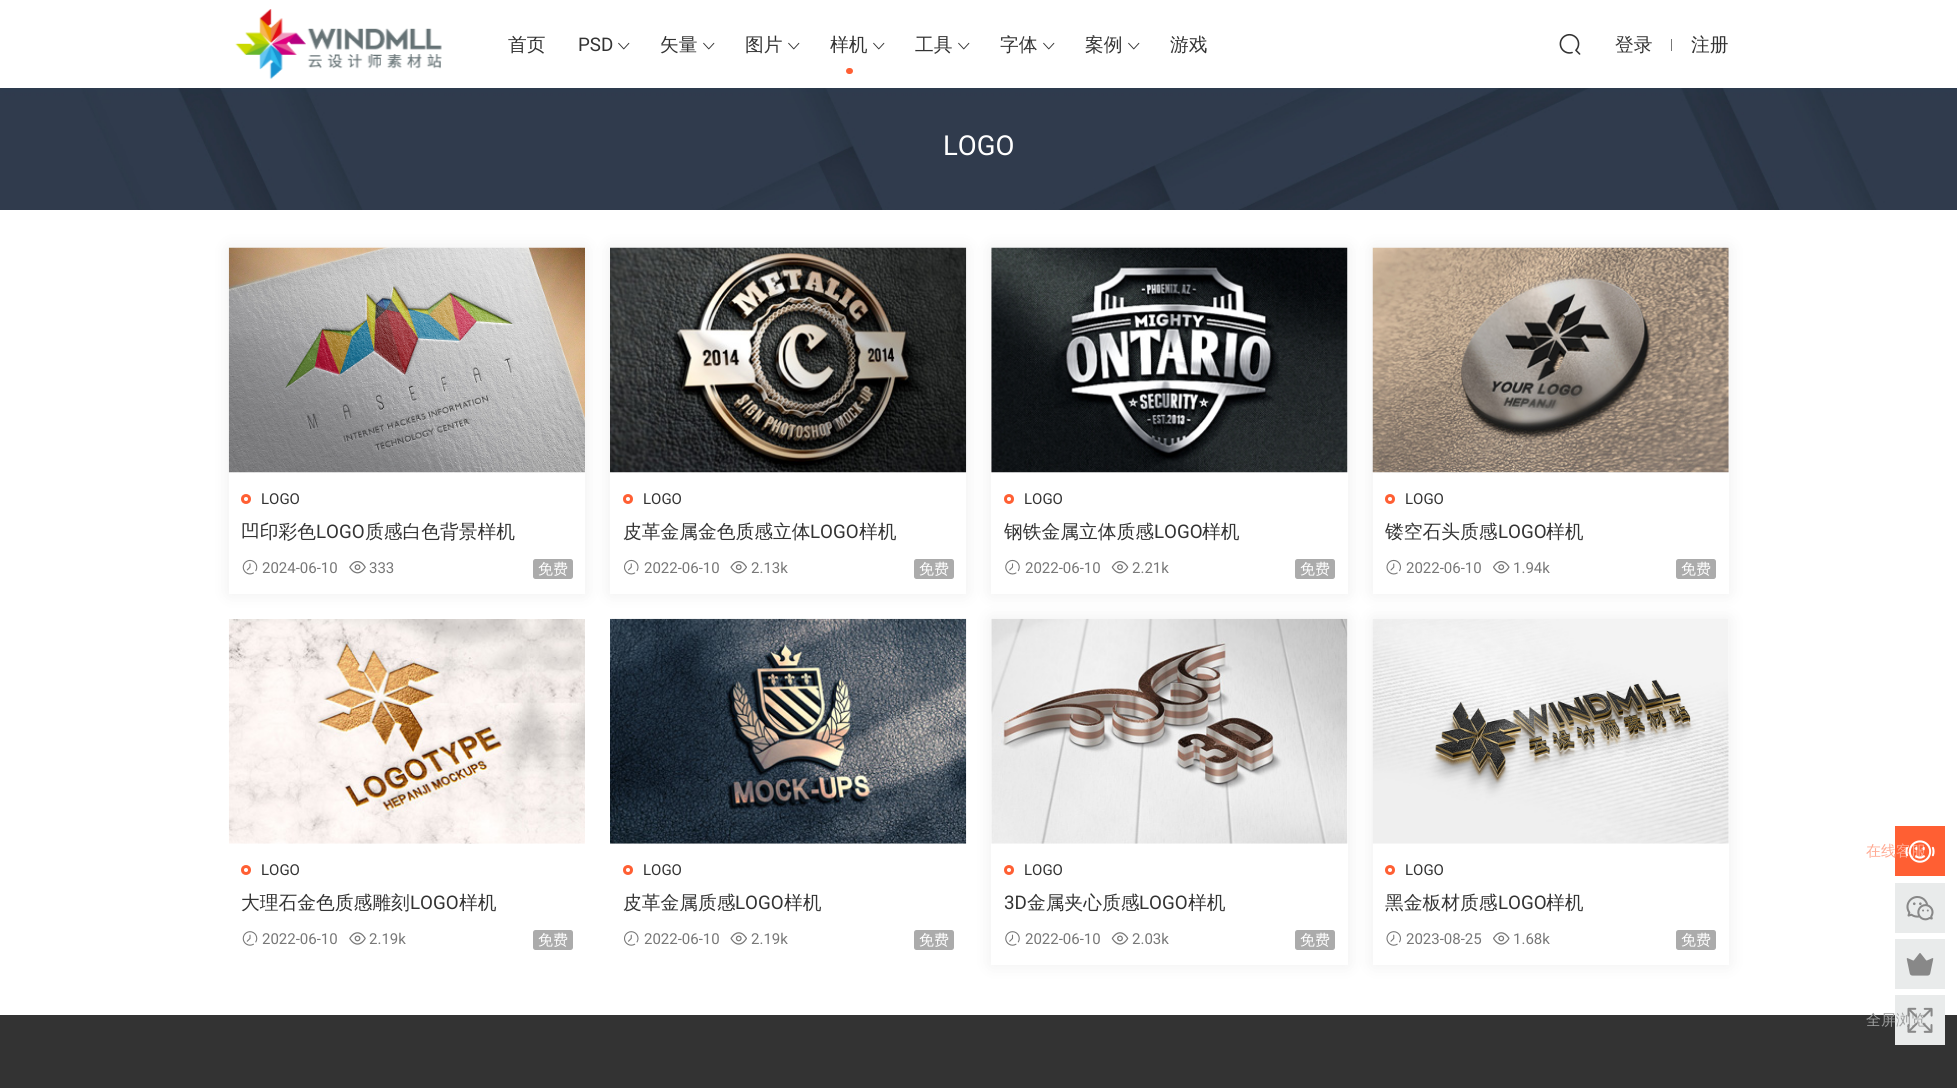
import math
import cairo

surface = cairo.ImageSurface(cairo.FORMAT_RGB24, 1957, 1088)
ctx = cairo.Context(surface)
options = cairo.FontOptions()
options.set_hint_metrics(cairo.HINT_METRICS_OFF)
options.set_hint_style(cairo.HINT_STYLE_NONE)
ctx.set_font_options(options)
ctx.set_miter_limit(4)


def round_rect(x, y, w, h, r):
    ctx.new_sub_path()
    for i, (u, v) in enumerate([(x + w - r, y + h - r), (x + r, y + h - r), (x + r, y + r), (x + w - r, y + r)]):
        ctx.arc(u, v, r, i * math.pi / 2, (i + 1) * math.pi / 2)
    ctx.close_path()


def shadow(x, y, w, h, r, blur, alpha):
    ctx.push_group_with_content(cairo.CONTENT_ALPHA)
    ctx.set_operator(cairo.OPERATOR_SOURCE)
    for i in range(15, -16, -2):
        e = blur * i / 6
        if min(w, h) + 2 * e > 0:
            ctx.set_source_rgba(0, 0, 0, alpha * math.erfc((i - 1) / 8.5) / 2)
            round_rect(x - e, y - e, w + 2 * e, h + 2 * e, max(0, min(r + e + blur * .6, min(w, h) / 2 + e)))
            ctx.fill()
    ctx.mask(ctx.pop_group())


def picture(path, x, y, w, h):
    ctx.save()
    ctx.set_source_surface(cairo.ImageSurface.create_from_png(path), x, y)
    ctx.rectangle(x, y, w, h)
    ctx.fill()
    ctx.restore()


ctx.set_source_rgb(1, 1, 1)
ctx.paint()
picture("img4.png", 0, 88, 1957, 122)
ctx.set_source_rgb(0.067, 0.227, 0.365)
shadow(0, 5, 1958, 88, 0, 6, 0.1)
ctx.set_source_rgb(1, 1, 1)
ctx.rectangle(0, 0, 1957, 88)
ctx.fill()
picture("img1.png", 235, 9, 207, 70)
ctx.select_font_face("WenQuanYi Zen Hei Medium")
ctx.set_font_size(18.75)
ctx.set_source_rgb(0.2, 0.2, 0.2)
ctx.move_to(508, 51)
ctx.show_text("首页")
ctx.select_font_face("Roboto")
ctx.move_to(578, 51)
ctx.show_text("PSD")
picture("img2.png", 618, 42, 12, 8)
ctx.select_font_face("WenQuanYi Zen Hei Medium")
ctx.move_to(660, 51)
ctx.show_text("矢量")
picture("img2.png", 703, 42, 12, 8)
ctx.move_to(745, 51)
ctx.show_text("图片")
picture("img2.png", 788, 42, 12, 8)
ctx.move_to(830, 51)
ctx.show_text("样机")
ctx.set_source_rgb(1, 0.373, 0.2)
round_rect(846, 68, 7, 6, 3)
ctx.fill()
picture("img2.png", 873, 42, 12, 8)
ctx.set_source_rgb(0.2, 0.2, 0.2)
ctx.move_to(915, 51)
ctx.show_text("工具")
picture("img2.png", 958, 42, 12, 8)
ctx.move_to(1000, 51)
ctx.show_text("字体")
picture("img2.png", 1043, 42, 12, 8)
ctx.move_to(1085, 51)
ctx.show_text("案例")
picture("img2.png", 1128, 42, 12, 8)
ctx.move_to(1170, 51)
ctx.show_text("游戏")
picture("img3.png", 1559, 33, 22, 22)
ctx.move_to(1615, 51)
ctx.show_text("登录")
ctx.set_source_rgb(0.467, 0.467, 0.467)
ctx.rectangle(1671, 39, 1, 12)
ctx.fill()
ctx.set_source_rgb(0.2, 0.2, 0.2)
ctx.move_to(1691, 51)
ctx.show_text("注册")
ctx.select_font_face("Roboto")
ctx.set_font_size(27.5)
ctx.set_source_rgb(1, 1, 1)
ctx.move_to(943, 155)
ctx.show_text("LOGO")
ctx.set_source_rgb(0, 0, 0)
shadow(229, 248, 356, 346, 0, 9.5, 0.07)
ctx.set_source_rgb(1, 1, 1)
ctx.rectangle(229, 472, 356, 122)
ctx.fill()
picture("img5.png", 228, 247, 357, 226)
ctx.arc(246, 499, 3.5, 0, 2 * math.pi)
ctx.set_source_rgb(1, 0.373, 0.2)
ctx.set_line_width(3)
ctx.stroke()
ctx.set_font_size(15)
ctx.set_source_rgb(0.2, 0.2, 0.2)
ctx.move_to(261, 504)
ctx.show_text("LOGO")
ctx.select_font_face("WenQuanYi Zen Hei Medium")
ctx.set_font_size(18.75)
ctx.move_to(241, 538)
ctx.show_text("凹印彩色")
ctx.select_font_face("Roboto")
ctx.move_to(316, 538)
ctx.show_text("LOGO")
ctx.select_font_face("WenQuanYi Zen Hei Medium")
ctx.move_to(365, 538)
ctx.show_text("质感白色背景样机")
picture("img6.png", 242, 559, 16, 16)
ctx.select_font_face("Roboto")
ctx.set_font_size(15)
ctx.set_source_rgb(0.467, 0.467, 0.467)
ctx.move_to(262, 573)
ctx.show_text("2024-06-10")
picture("img7.png", 349, 561, 17, 13)
ctx.move_to(369, 573)
ctx.show_text("333")
ctx.set_source_rgb(0.671, 0.671, 0.671)
round_rect(533, 559, 40, 20, 2.5)
ctx.fill()
ctx.select_font_face("WenQuanYi Zen Hei Medium")
ctx.set_source_rgb(1, 1, 1)
ctx.move_to(538, 574)
ctx.show_text("免费")
ctx.set_source_rgb(0, 0, 0)
shadow(610, 248, 356, 346, 0, 9.5, 0.07)
ctx.set_source_rgb(1, 1, 1)
ctx.rectangle(610, 472, 356, 122)
ctx.fill()
picture("img8.png", 610, 247, 357, 226)
ctx.arc(628, 499, 3.5, 0, 2 * math.pi)
ctx.set_source_rgb(1, 0.373, 0.2)
ctx.stroke()
ctx.select_font_face("Roboto")
ctx.set_source_rgb(0.2, 0.2, 0.2)
ctx.move_to(643, 504)
ctx.show_text("LOGO")
ctx.select_font_face("WenQuanYi Zen Hei Medium")
ctx.set_font_size(18.75)
ctx.move_to(623, 538)
ctx.show_text("皮革金属金色质感立体")
ctx.select_font_face("Roboto")
ctx.move_to(810, 538)
ctx.show_text("LOGO")
ctx.select_font_face("WenQuanYi Zen Hei Medium")
ctx.move_to(859, 538)
ctx.show_text("样机")
picture("img9.png", 624, 559, 15, 16)
ctx.select_font_face("Roboto")
ctx.set_font_size(15)
ctx.set_source_rgb(0.467, 0.467, 0.467)
ctx.move_to(644, 573)
ctx.show_text("2022-06-10")
picture("img10.png", 730, 561, 17, 13)
ctx.move_to(751, 573)
ctx.show_text("2.13k")
ctx.set_source_rgb(0.671, 0.671, 0.671)
round_rect(914, 559, 40, 20, 2.5)
ctx.fill()
ctx.select_font_face("WenQuanYi Zen Hei Medium")
ctx.set_source_rgb(1, 1, 1)
ctx.move_to(919, 574)
ctx.show_text("免费")
ctx.set_source_rgb(0, 0, 0)
shadow(991, 248, 357, 346, 0, 9.5, 0.07)
ctx.set_source_rgb(1, 1, 1)
ctx.rectangle(991, 248, 357, 346)
ctx.fill()
picture("img11.png", 991, 247, 357, 226)
ctx.arc(1009, 499, 3.5, 0, 2 * math.pi)
ctx.set_source_rgb(1, 0.373, 0.2)
ctx.stroke()
ctx.select_font_face("Roboto")
ctx.set_source_rgb(0.2, 0.2, 0.2)
ctx.move_to(1024, 504)
ctx.show_text("LOGO")
ctx.select_font_face("WenQuanYi Zen Hei Medium")
ctx.set_font_size(18.75)
ctx.move_to(1004, 538)
ctx.show_text("钢铁金属立体质感")
ctx.select_font_face("Roboto")
ctx.move_to(1154, 538)
ctx.show_text("LOGO")
ctx.select_font_face("WenQuanYi Zen Hei Medium")
ctx.move_to(1202, 538)
ctx.show_text("样机")
picture("img12.png", 1005, 559, 15, 16)
ctx.select_font_face("Roboto")
ctx.set_font_size(15)
ctx.set_source_rgb(0.467, 0.467, 0.467)
ctx.move_to(1025, 573)
ctx.show_text("2022-06-10")
picture("img13.png", 1111, 561, 18, 13)
ctx.move_to(1132, 573)
ctx.show_text("2.21k")
ctx.set_source_rgb(0.671, 0.671, 0.671)
round_rect(1295, 559, 40, 20, 2.5)
ctx.fill()
ctx.select_font_face("WenQuanYi Zen Hei Medium")
ctx.set_source_rgb(1, 1, 1)
ctx.move_to(1300, 574)
ctx.show_text("免费")
ctx.set_source_rgb(0, 0, 0)
shadow(1373, 248, 356, 346, 0, 9.5, 0.07)
ctx.set_source_rgb(1, 1, 1)
ctx.rectangle(1373, 248, 356, 346)
ctx.fill()
picture("img14.png", 1372, 247, 357, 226)
ctx.arc(1390, 499, 3.5, 0, 2 * math.pi)
ctx.set_source_rgb(1, 0.373, 0.2)
ctx.stroke()
ctx.select_font_face("Roboto")
ctx.set_source_rgb(0.2, 0.2, 0.2)
ctx.move_to(1405, 504)
ctx.show_text("LOGO")
ctx.select_font_face("WenQuanYi Zen Hei Medium")
ctx.set_font_size(18.75)
ctx.move_to(1385, 538)
ctx.show_text("镂空石头质感")
ctx.select_font_face("Roboto")
ctx.move_to(1498, 538)
ctx.show_text("LOGO")
ctx.select_font_face("WenQuanYi Zen Hei Medium")
ctx.move_to(1546, 538)
ctx.show_text("样机")
picture("img15.png", 1386, 559, 15, 16)
ctx.select_font_face("Roboto")
ctx.set_font_size(15)
ctx.set_source_rgb(0.467, 0.467, 0.467)
ctx.move_to(1406, 573)
ctx.show_text("2022-06-10")
picture("img16.png", 1493, 561, 17, 13)
ctx.move_to(1513, 573)
ctx.show_text("1.94k")
ctx.set_source_rgb(0.671, 0.671, 0.671)
round_rect(1676, 559, 40, 20, 2.5)
ctx.fill()
ctx.select_font_face("WenQuanYi Zen Hei Medium")
ctx.set_source_rgb(1, 1, 1)
ctx.move_to(1681, 574)
ctx.show_text("免费")
picture("img17.png", 228, 619, 357, 225)
ctx.arc(246, 870, 3.5, 0, 2 * math.pi)
ctx.set_source_rgb(1, 0.373, 0.2)
ctx.stroke()
ctx.select_font_face("Roboto")
ctx.set_source_rgb(0.2, 0.2, 0.2)
ctx.move_to(261, 875)
ctx.show_text("LOGO")
ctx.select_font_face("WenQuanYi Zen Hei Medium")
ctx.set_font_size(18.75)
ctx.move_to(241, 909)
ctx.show_text("大理石金色质感雕刻")
ctx.select_font_face("Roboto")
ctx.move_to(410, 909)
ctx.show_text("LOGO")
ctx.select_font_face("WenQuanYi Zen Hei Medium")
ctx.move_to(459, 909)
ctx.show_text("样机")
picture("img18.png", 242, 931, 16, 15)
ctx.select_font_face("Roboto")
ctx.set_font_size(15)
ctx.set_source_rgb(0.467, 0.467, 0.467)
ctx.move_to(262, 944)
ctx.show_text("2022-06-10")
picture("img19.png", 349, 932, 17, 13)
ctx.move_to(369, 944)
ctx.show_text("2.19k")
ctx.set_source_rgb(0.671, 0.671, 0.671)
round_rect(533, 930, 40, 20, 2.5)
ctx.fill()
ctx.select_font_face("WenQuanYi Zen Hei Medium")
ctx.set_source_rgb(1, 1, 1)
ctx.move_to(538, 945)
ctx.show_text("免费")
picture("img20.png", 610, 618, 357, 226)
ctx.arc(628, 870, 3.5, 0, 2 * math.pi)
ctx.set_source_rgb(1, 0.373, 0.2)
ctx.stroke()
ctx.select_font_face("Roboto")
ctx.set_source_rgb(0.2, 0.2, 0.2)
ctx.move_to(643, 875)
ctx.show_text("LOGO")
ctx.select_font_face("WenQuanYi Zen Hei Medium")
ctx.set_font_size(18.75)
ctx.move_to(623, 909)
ctx.show_text("皮革金属质感")
ctx.select_font_face("Roboto")
ctx.move_to(735, 909)
ctx.show_text("LOGO")
ctx.select_font_face("WenQuanYi Zen Hei Medium")
ctx.move_to(784, 909)
ctx.show_text("样机")
picture("img21.png", 624, 931, 15, 15)
ctx.select_font_face("Roboto")
ctx.set_font_size(15)
ctx.set_source_rgb(0.467, 0.467, 0.467)
ctx.move_to(644, 944)
ctx.show_text("2022-06-10")
picture("img22.png", 730, 932, 17, 13)
ctx.move_to(751, 944)
ctx.show_text("2.19k")
ctx.set_source_rgb(0.671, 0.671, 0.671)
round_rect(914, 930, 40, 20, 2.5)
ctx.fill()
ctx.select_font_face("WenQuanYi Zen Hei Medium")
ctx.set_source_rgb(1, 1, 1)
ctx.move_to(919, 945)
ctx.show_text("免费")
ctx.set_source_rgb(0, 0, 0)
shadow(991, 619, 357, 346, 0, 9.5, 0.07)
ctx.set_source_rgb(1, 1, 1)
ctx.rectangle(991, 619, 357, 346)
ctx.fill()
picture("img23.png", 991, 618, 357, 226)
ctx.arc(1009, 870, 3.5, 0, 2 * math.pi)
ctx.set_source_rgb(1, 0.373, 0.2)
ctx.stroke()
ctx.select_font_face("Roboto")
ctx.set_source_rgb(0.2, 0.2, 0.2)
ctx.move_to(1024, 875)
ctx.show_text("LOGO")
ctx.set_font_size(18.75)
ctx.move_to(1004, 909)
ctx.show_text("3D")
ctx.select_font_face("WenQuanYi Zen Hei Medium")
ctx.move_to(1027, 909)
ctx.show_text("金属夹心质感")
ctx.select_font_face("Roboto")
ctx.move_to(1139, 909)
ctx.show_text("LOGO")
ctx.select_font_face("WenQuanYi Zen Hei Medium")
ctx.move_to(1188, 909)
ctx.show_text("样机")
picture("img24.png", 1005, 931, 15, 15)
ctx.select_font_face("Roboto")
ctx.set_font_size(15)
ctx.set_source_rgb(0.467, 0.467, 0.467)
ctx.move_to(1025, 944)
ctx.show_text("2022-06-10")
picture("img25.png", 1111, 932, 18, 13)
ctx.move_to(1132, 944)
ctx.show_text("2.03k")
ctx.set_source_rgb(0.671, 0.671, 0.671)
round_rect(1295, 930, 40, 20, 2.5)
ctx.fill()
ctx.select_font_face("WenQuanYi Zen Hei Medium")
ctx.set_source_rgb(1, 1, 1)
ctx.move_to(1300, 945)
ctx.show_text("免费")
ctx.set_source_rgb(0, 0, 0)
shadow(1373, 619, 356, 346, 0, 9.5, 0.07)
ctx.set_source_rgb(1, 1, 1)
ctx.rectangle(1373, 619, 356, 346)
ctx.fill()
picture("img26.png", 1372, 619, 357, 225)
ctx.arc(1390, 870, 3.5, 0, 2 * math.pi)
ctx.set_source_rgb(1, 0.373, 0.2)
ctx.stroke()
ctx.select_font_face("Roboto")
ctx.set_source_rgb(0.2, 0.2, 0.2)
ctx.move_to(1405, 875)
ctx.show_text("LOGO")
ctx.select_font_face("WenQuanYi Zen Hei Medium")
ctx.set_font_size(18.75)
ctx.move_to(1385, 909)
ctx.show_text("黑金板材质感")
ctx.select_font_face("Roboto")
ctx.move_to(1498, 909)
ctx.show_text("LOGO")
ctx.select_font_face("WenQuanYi Zen Hei Medium")
ctx.move_to(1546, 909)
ctx.show_text("样机")
picture("img27.png", 1386, 931, 15, 15)
ctx.select_font_face("Roboto")
ctx.set_font_size(15)
ctx.set_source_rgb(0.467, 0.467, 0.467)
ctx.move_to(1406, 944)
ctx.show_text("2023-08-25")
picture("img28.png", 1493, 932, 17, 13)
ctx.move_to(1513, 944)
ctx.show_text("1.68k")
ctx.set_source_rgb(0.671, 0.671, 0.671)
round_rect(1676, 930, 40, 20, 2.5)
ctx.fill()
ctx.select_font_face("WenQuanYi Zen Hei Medium")
ctx.set_source_rgb(1, 1, 1)
ctx.move_to(1681, 945)
ctx.show_text("免费")
ctx.set_source_rgb(1, 0.373, 0.2)
ctx.rectangle(1895, 826, 50, 50)
ctx.fill()
ctx.set_source_rgb(1, 0.667, 0.576)
ctx.move_to(1866, 856)
ctx.show_text("在线客服")
picture("img29.png", 1905, 840, 30, 23)
ctx.set_source_rgb(0.914, 0.918, 0.918)
ctx.rectangle(1895, 883, 50, 50)
ctx.fill()
picture("img30.png", 1906, 896, 28, 25)
ctx.rectangle(1895, 939, 50, 50)
ctx.fill()
picture("img31.png", 1906, 953, 28, 23)
ctx.set_source_rgb(0.2, 0.2, 0.2)
ctx.rectangle(0, 1015, 1957, 73)
ctx.fill()
ctx.set_source_rgb(0.914, 0.918, 0.918)
ctx.rectangle(1895, 995, 50, 50)
ctx.fill()
ctx.set_source_rgb(0.62, 0.624, 0.624)
ctx.move_to(1866, 1025)
ctx.show_text("全屏浏览")
picture("img32.png", 1907, 1007, 26, 26)
surface.write_to_png("page.png")
